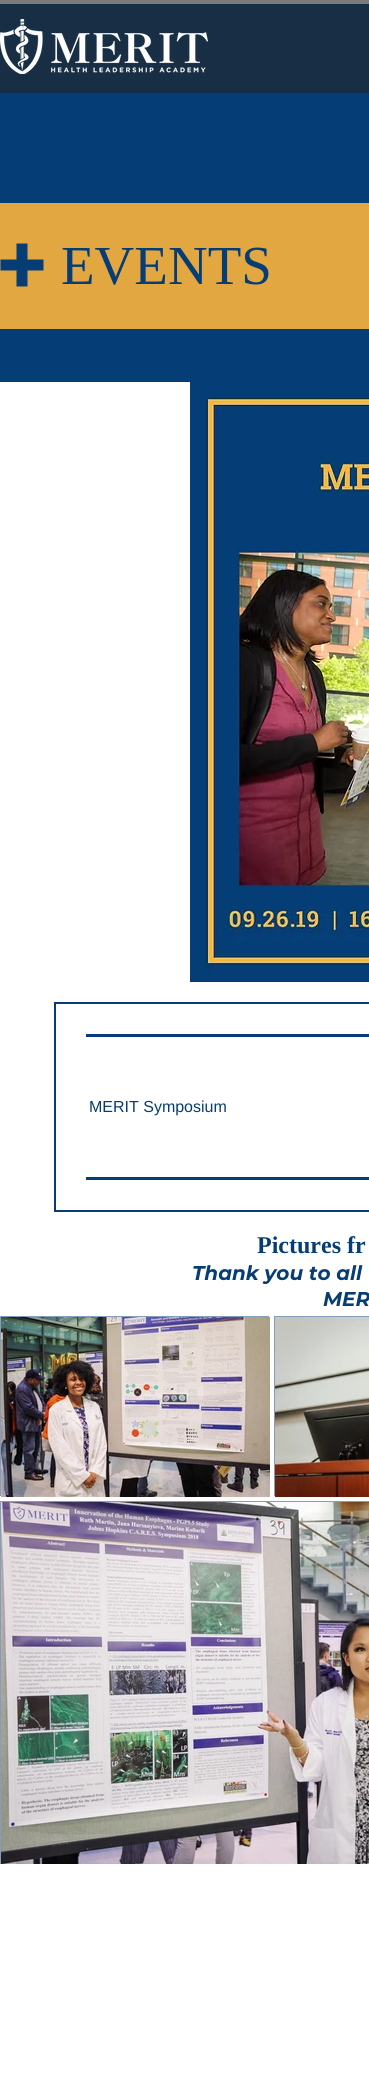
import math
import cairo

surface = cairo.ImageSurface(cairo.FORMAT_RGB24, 369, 2085)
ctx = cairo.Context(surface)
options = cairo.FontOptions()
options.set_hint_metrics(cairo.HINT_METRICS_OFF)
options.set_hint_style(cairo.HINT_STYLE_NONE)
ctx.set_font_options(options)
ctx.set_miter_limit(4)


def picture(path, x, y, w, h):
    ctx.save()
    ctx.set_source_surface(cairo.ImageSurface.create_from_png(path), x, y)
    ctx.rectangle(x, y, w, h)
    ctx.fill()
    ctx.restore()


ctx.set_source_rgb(1, 1, 1)
ctx.paint()
ctx.set_source_rgb(0.482, 0.482, 0.482)
ctx.rectangle(0, 0, 369, 4)
ctx.fill()
ctx.set_source_rgb(0.09, 0.18, 0.267)
ctx.rectangle(0, 4, 369, 89)
ctx.fill()
picture("img1.png", 0, 19, 208, 55)
ctx.set_source_rgb(0.02, 0.243, 0.463)
ctx.rectangle(0, 93, 369, 289)
ctx.fill()
ctx.set_source_rgb(0.886, 0.655, 0.251)
ctx.rectangle(0, 203, 369, 126)
ctx.fill()
ctx.new_path()
ctx.move_to(39, 264)
ctx.line_to(23, 264)
ctx.line_to(23, 248)
ctx.line_to(21, 248)
ctx.line_to(21, 264)
ctx.line_to(5, 264)
ctx.line_to(5, 266)
ctx.line_to(21, 266)
ctx.line_to(21, 282)
ctx.line_to(23, 282)
ctx.line_to(23, 266)
ctx.line_to(39, 266)
ctx.close_path()
ctx.set_source_rgb(0.024, 0.239, 0.459)
ctx.set_line_width(9)
ctx.stroke()
ctx.select_font_face("Liberation Serif")
ctx.set_font_size(55)
ctx.move_to(61, 284)
ctx.show_text("EVENTS")
picture("img2.png", 190, 382, 179, 600)
ctx.rectangle(55, 1003, 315, 208)
ctx.set_source_rgb(0.02, 0.243, 0.463)
ctx.set_line_width(2)
ctx.stroke()
ctx.rectangle(86, 1034, 283, 3)
ctx.fill()
ctx.rectangle(86, 1177, 283, 3)
ctx.fill()
ctx.select_font_face("Liberation Sans")
ctx.set_font_size(16)
ctx.set_source_rgb(0.024, 0.239, 0.459)
ctx.move_to(89, 1112)
ctx.show_text("MERIT Symposium")
ctx.select_font_face("Liberation Serif", cairo.FONT_SLANT_NORMAL, cairo.FONT_WEIGHT_BOLD)
ctx.set_font_size(24)
ctx.move_to(257, 1253)
ctx.show_text("Pictures fr")
ctx.select_font_face("Montserrat", cairo.FONT_SLANT_ITALIC, cairo.FONT_WEIGHT_BOLD)
ctx.set_font_size(20)
ctx.move_to(192, 1280)
ctx.show_text("Thank you to all")
ctx.move_to(323, 1306)
ctx.show_text("MER")
ctx.set_source_rgb(0.514, 0.62, 0.729)
ctx.rectangle(0, 1316, 269, 180)
ctx.fill()
picture("img3.png", 1, 1317, 269, 180)
ctx.rectangle(274, 1316, 95, 180)
ctx.fill()
picture("img4.png", 275, 1317, 94, 180)
ctx.rectangle(0, 1501, 369, 363)
ctx.fill()
picture("img5.png", 1, 1502, 368, 362)
surface.write_to_png("page.png")
